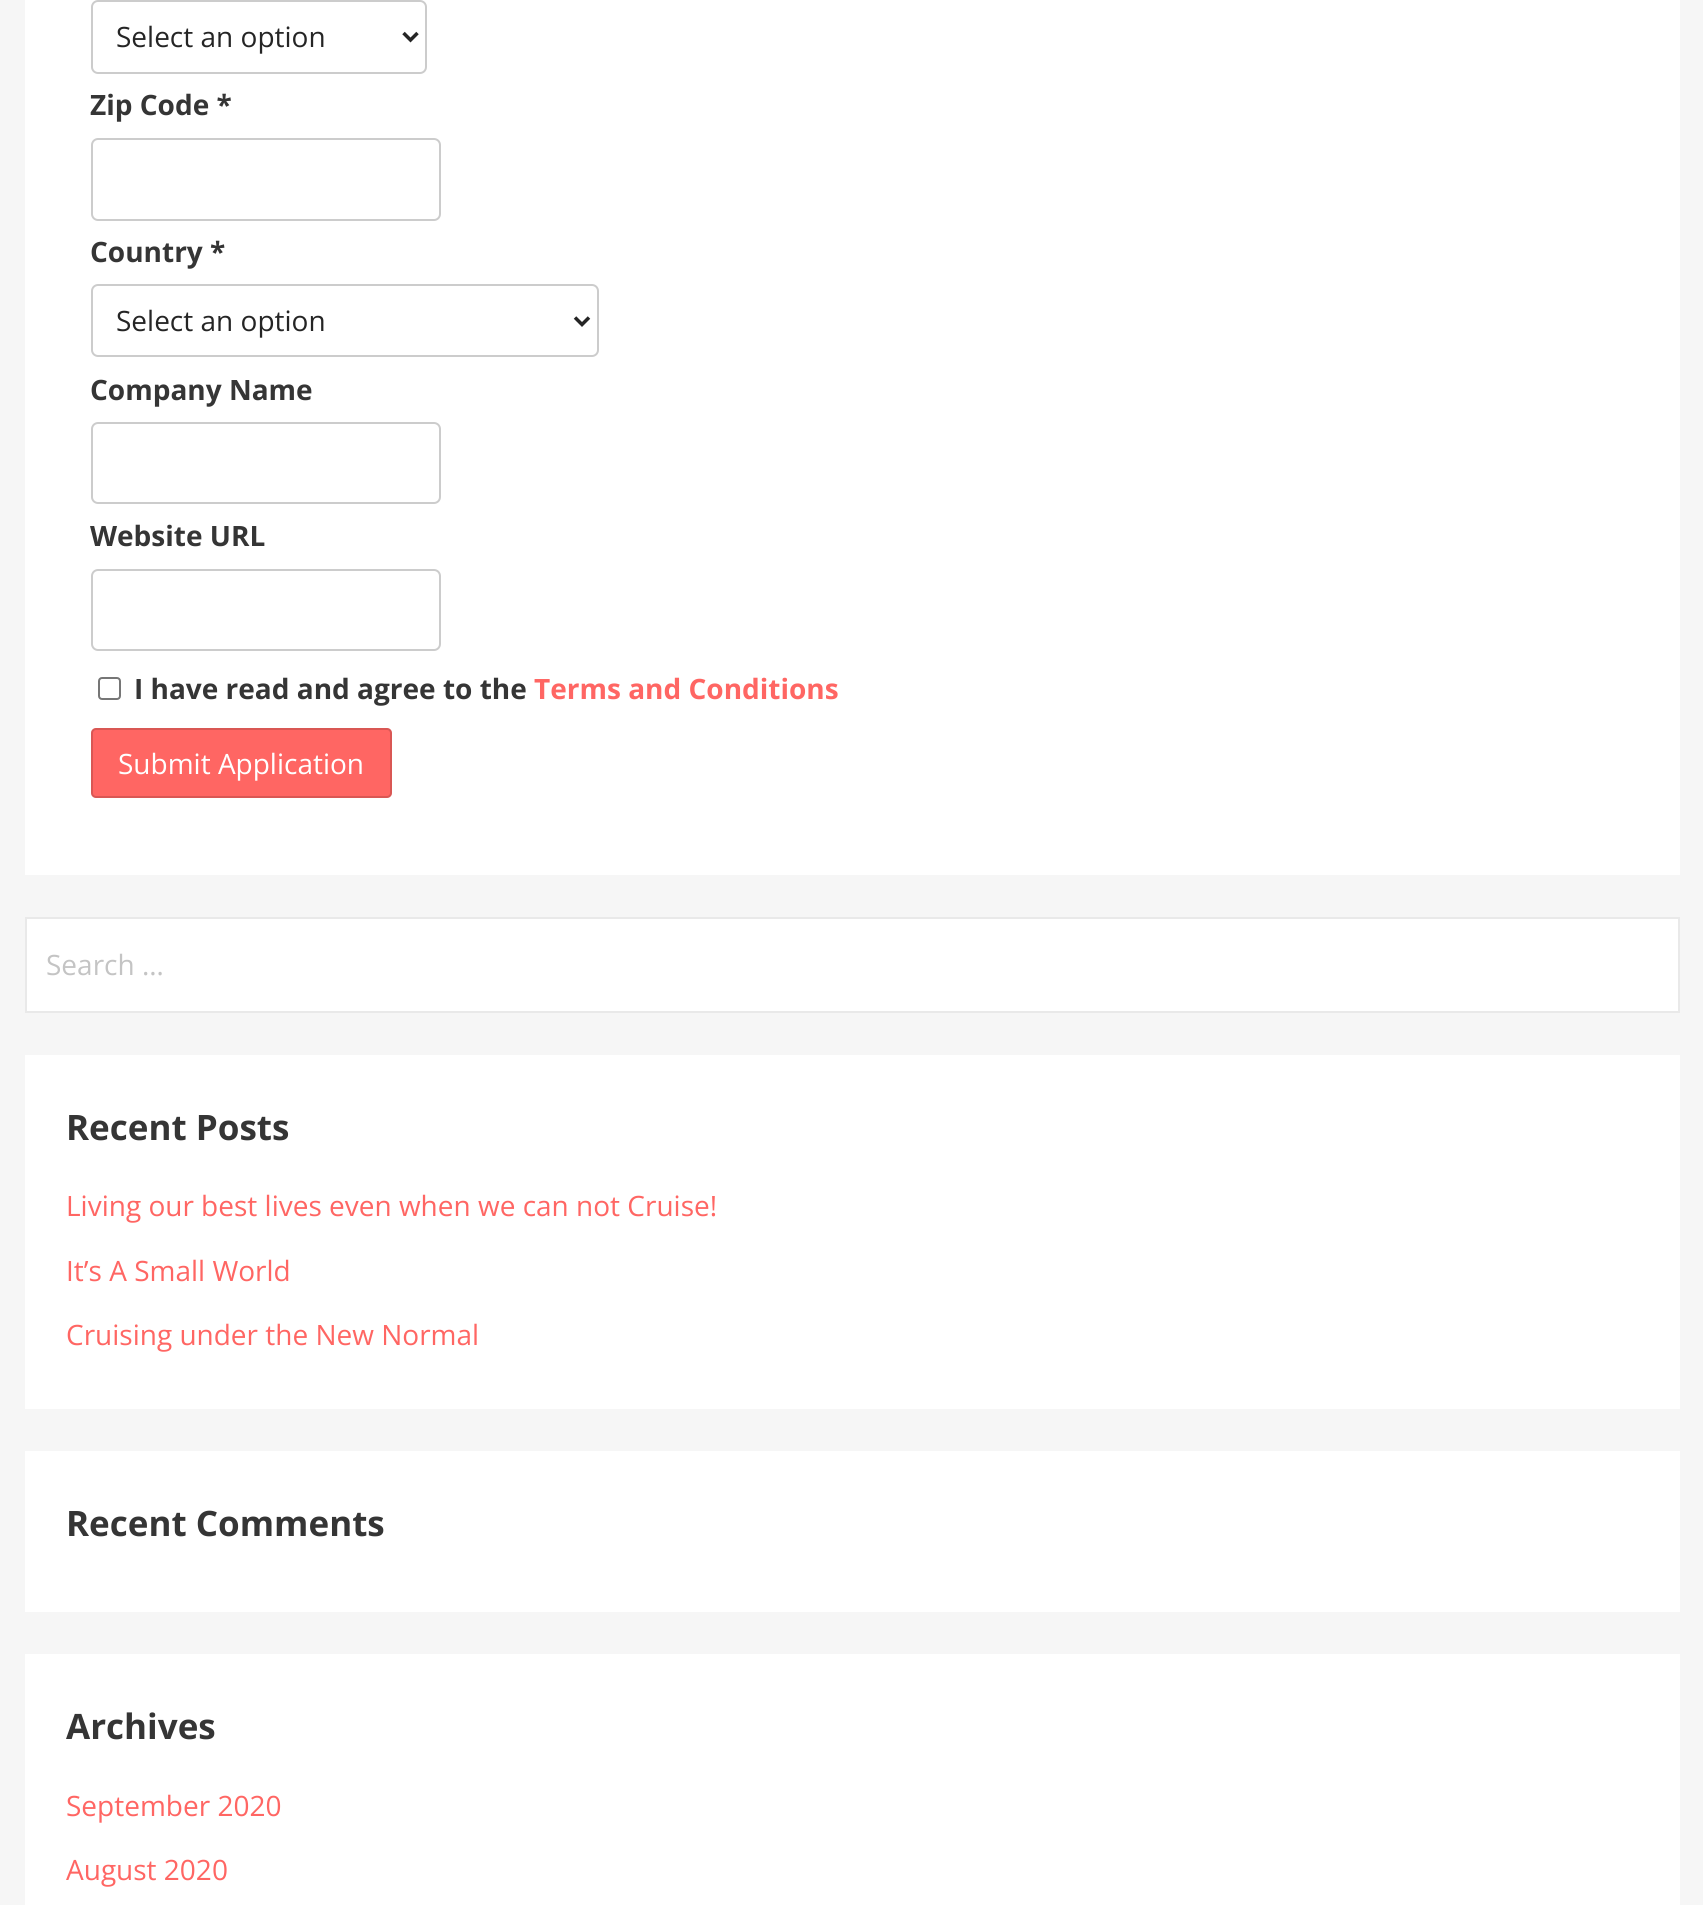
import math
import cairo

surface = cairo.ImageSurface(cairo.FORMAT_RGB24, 1703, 1905)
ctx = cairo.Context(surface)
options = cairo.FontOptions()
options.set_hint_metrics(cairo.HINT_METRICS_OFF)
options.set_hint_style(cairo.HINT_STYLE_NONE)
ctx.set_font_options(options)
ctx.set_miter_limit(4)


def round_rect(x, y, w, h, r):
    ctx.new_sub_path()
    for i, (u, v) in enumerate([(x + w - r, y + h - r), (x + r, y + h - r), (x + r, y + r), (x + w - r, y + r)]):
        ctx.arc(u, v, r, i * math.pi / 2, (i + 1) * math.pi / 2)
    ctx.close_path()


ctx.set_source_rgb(0.961, 0.961, 0.961)
ctx.paint()
ctx.set_source_rgb(1, 1, 1)
ctx.rectangle(25, 0, 1655, 875)
ctx.fill()
round_rect(92, 1, 334, 72, 6)
ctx.set_source_rgb(0.8, 0.8, 0.8)
ctx.stroke()
ctx.new_path()
ctx.move_to(403.5, 33)
ctx.line_to(410.5, 40)
ctx.line_to(417.5, 33)
ctx.set_source_rgb(0.145, 0.145, 0.145)
ctx.set_line_width(3.5)
ctx.stroke()
ctx.select_font_face("Open Sans")
ctx.set_font_size(28)
ctx.move_to(116, 47)
ctx.show_text("Select an option")
ctx.select_font_face("Open Sans", cairo.FONT_SLANT_NORMAL, cairo.FONT_WEIGHT_BOLD)
ctx.set_source_rgb(0.208, 0.208, 0.208)
ctx.move_to(90, 115)
ctx.show_text("Zip Code *")
round_rect(92, 139, 348, 81, 6)
ctx.set_source_rgb(0.8, 0.8, 0.8)
ctx.set_line_width(2)
ctx.stroke()
ctx.set_source_rgb(0.208, 0.208, 0.208)
ctx.move_to(90, 262)
ctx.show_text("Country *")
round_rect(92, 285, 506, 71, 6)
ctx.set_source_rgb(0.8, 0.8, 0.8)
ctx.stroke()
ctx.new_path()
ctx.move_to(575, 317.5)
ctx.line_to(582, 324.5)
ctx.line_to(589, 317.5)
ctx.set_source_rgb(0.145, 0.145, 0.145)
ctx.set_line_width(3.5)
ctx.stroke()
ctx.select_font_face("Open Sans")
ctx.move_to(116, 331)
ctx.show_text("Select an option")
ctx.select_font_face("Open Sans", cairo.FONT_SLANT_NORMAL, cairo.FONT_WEIGHT_BOLD)
ctx.set_source_rgb(0.208, 0.208, 0.208)
ctx.move_to(90, 400)
ctx.show_text("Company Name")
round_rect(92, 423, 348, 80, 6)
ctx.set_source_rgb(0.8, 0.8, 0.8)
ctx.set_line_width(2)
ctx.stroke()
ctx.set_source_rgb(0.208, 0.208, 0.208)
ctx.move_to(90, 546)
ctx.show_text("Website URL")
round_rect(92, 570, 348, 80, 6)
ctx.set_source_rgb(0.8, 0.8, 0.8)
ctx.stroke()
round_rect(99, 678, 21, 21, 3)
ctx.set_source_rgb(0.463, 0.463, 0.463)
ctx.stroke()
ctx.set_source_rgb(0.208, 0.208, 0.208)
ctx.move_to(134, 699)
ctx.show_text("I have read and agree to the")
ctx.set_source_rgb(1, 0.4, 0.388)
ctx.move_to(534, 699)
ctx.show_text("Terms and Conditions")
round_rect(91, 728, 301, 70, 5)
ctx.fill()
round_rect(92, 729, 299, 68, 4)
ctx.set_source_rgba(0, 0, 0, 0.15)
ctx.stroke()
ctx.select_font_face("Open Sans")
ctx.set_source_rgb(1, 1, 1)
ctx.move_to(118, 774)
ctx.show_text("Submit Application")
ctx.rectangle(26, 918, 1653, 94)
ctx.fill_preserve()
ctx.set_source_rgb(0.914, 0.914, 0.914)
ctx.stroke()
ctx.set_source_rgb(0.769, 0.769, 0.769)
ctx.move_to(46, 975)
ctx.show_text("Search …")
ctx.set_source_rgb(1, 1, 1)
ctx.rectangle(25, 1055, 1655, 354)
ctx.fill()
ctx.select_font_face("Open Sans", cairo.FONT_SLANT_NORMAL, cairo.FONT_WEIGHT_BOLD)
ctx.set_font_size(35)
ctx.set_source_rgb(0.208, 0.208, 0.208)
ctx.move_to(66, 1140)
ctx.show_text("Recent Posts")
ctx.select_font_face("Open Sans")
ctx.set_font_size(28)
ctx.set_source_rgb(1, 0.4, 0.388)
ctx.move_to(66, 1216)
ctx.show_text("Living our best lives even when we can not Cruise!")
ctx.move_to(66, 1281)
ctx.show_text("It’s A Small World")
ctx.move_to(66, 1345)
ctx.show_text("Cruising under the New Normal")
ctx.set_source_rgb(1, 1, 1)
ctx.rectangle(25, 1451, 1655, 161)
ctx.fill()
ctx.select_font_face("Open Sans", cairo.FONT_SLANT_NORMAL, cairo.FONT_WEIGHT_BOLD)
ctx.set_font_size(35)
ctx.set_source_rgb(0.208, 0.208, 0.208)
ctx.move_to(66, 1536)
ctx.show_text("Recent Comments")
ctx.set_source_rgb(1, 1, 1)
ctx.rectangle(25, 1654, 1655, 251)
ctx.fill()
ctx.set_source_rgb(0.208, 0.208, 0.208)
ctx.move_to(66, 1739)
ctx.show_text("Archives")
ctx.select_font_face("Open Sans")
ctx.set_font_size(28)
ctx.set_source_rgb(1, 0.4, 0.388)
ctx.move_to(66, 1816)
ctx.show_text("September 2020")
ctx.move_to(66, 1880)
ctx.show_text("August 2020")
surface.write_to_png("page.png")
